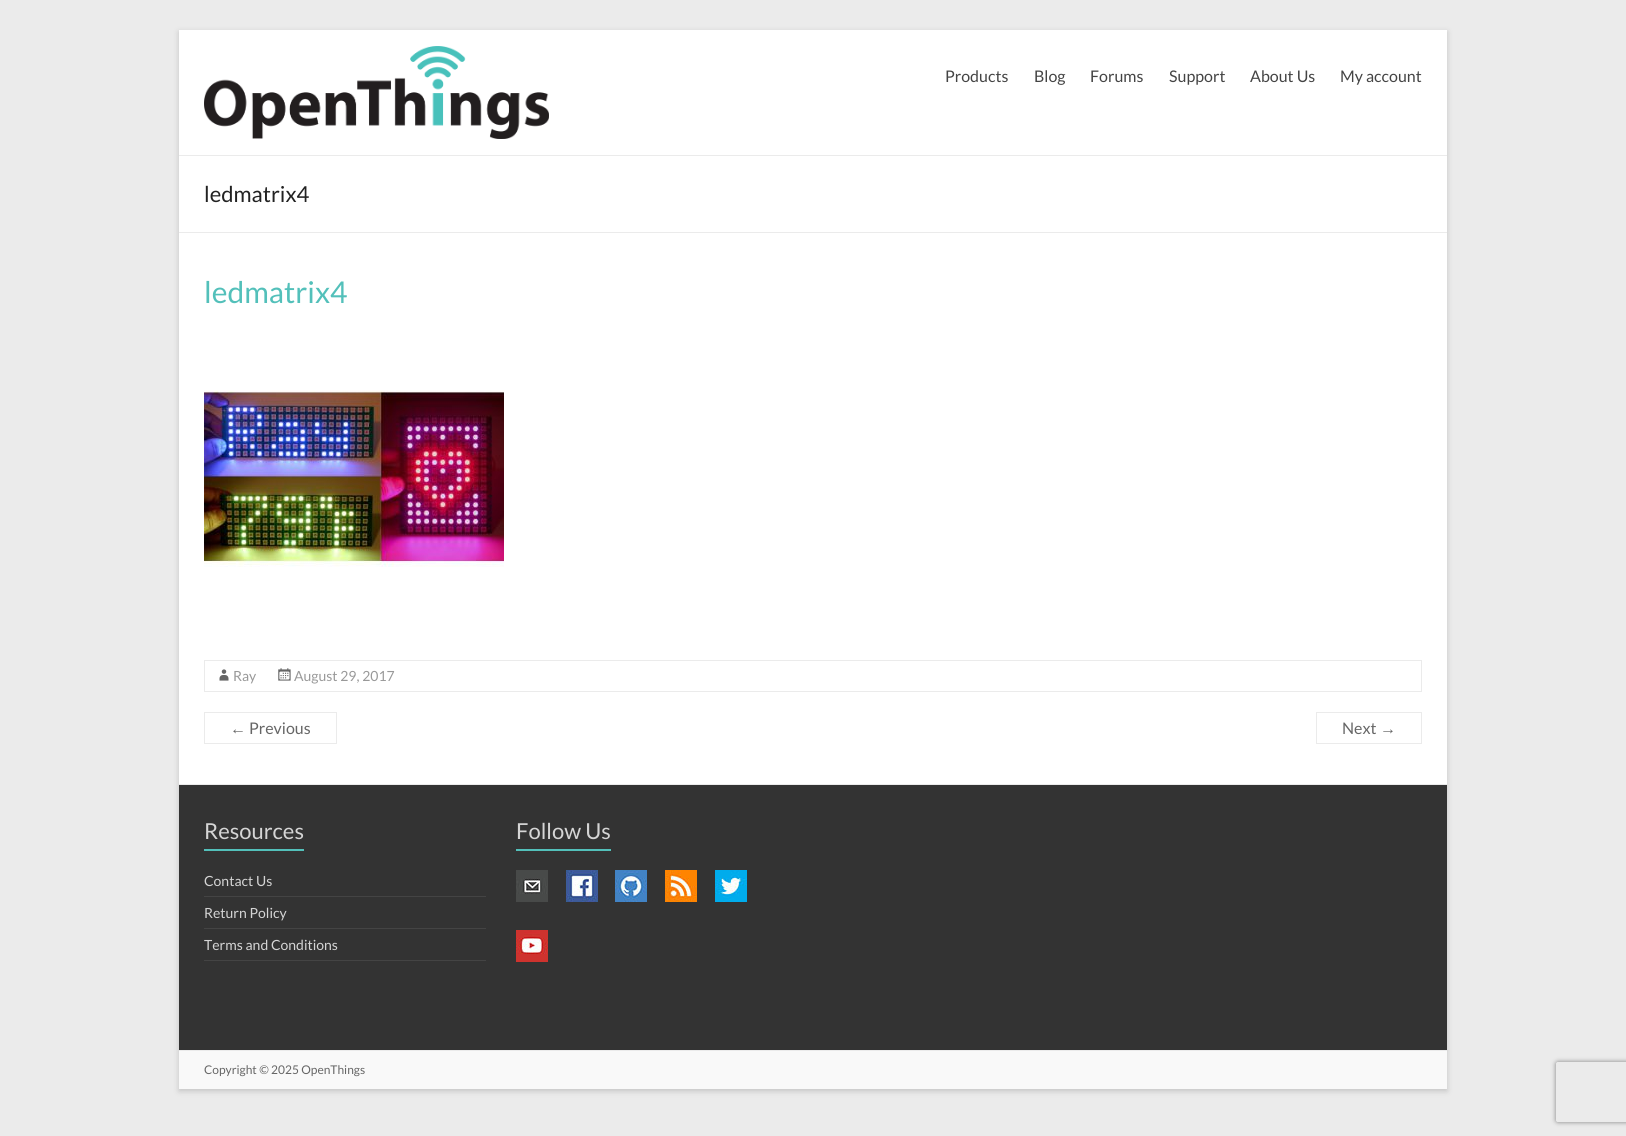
import math
import cairo

surface = cairo.ImageSurface(cairo.FORMAT_RGB24, 1626, 1136)
ctx = cairo.Context(surface)
options = cairo.FontOptions()
options.set_hint_metrics(cairo.HINT_METRICS_OFF)
options.set_hint_style(cairo.HINT_STYLE_NONE)
ctx.set_font_options(options)
ctx.set_miter_limit(4)


def round_rect(x, y, w, h, r):
    ctx.new_sub_path()
    for i, (u, v) in enumerate([(x + w - r, y + h - r), (x + r, y + h - r), (x + r, y + r), (x + w - r, y + r)]):
        ctx.arc(u, v, r, i * math.pi / 2, (i + 1) * math.pi / 2)
    ctx.close_path()


def shadow(x, y, w, h, r, blur, alpha):
    ctx.push_group_with_content(cairo.CONTENT_ALPHA)
    ctx.set_operator(cairo.OPERATOR_SOURCE)
    for i in range(15, -16, -2):
        e = blur * i / 6
        if min(w, h) + 2 * e > 0:
            ctx.set_source_rgba(0, 0, 0, alpha * math.erfc((i - 1) / 8.5) / 2)
            round_rect(x - e, y - e, w + 2 * e, h + 2 * e, max(0, min(r + e + blur * .6, min(w, h) / 2 + e)))
            ctx.fill()
    ctx.mask(ctx.pop_group())


def picture(path, x, y, w, h):
    ctx.save()
    ctx.set_source_surface(cairo.ImageSurface.create_from_png(path), x, y)
    ctx.rectangle(x, y, w, h)
    ctx.fill()
    ctx.restore()


ctx.set_source_rgb(0.918, 0.918, 0.918)
ctx.paint()
ctx.set_source_rgb(0.392, 0.392, 0.392)
shadow(179, 32, 1268, 1059, 0, 3, 0.3)
ctx.set_source_rgb(1, 1, 1)
ctx.rectangle(179, 30, 1268, 754)
ctx.fill()
ctx.set_source_rgb(0.918, 0.918, 0.918)
ctx.rectangle(179, 155, 1268, 1)
ctx.fill()
picture("img1.png", 204, 46, 345, 93)
ctx.select_font_face("Lato")
ctx.set_font_size(16)
ctx.set_source_rgb(0.267, 0.267, 0.267)
ctx.move_to(945, 82)
ctx.show_text("Products")
ctx.move_to(1034, 82)
ctx.show_text("Blog")
ctx.move_to(1090, 82)
ctx.show_text("Forums")
ctx.move_to(1169, 82)
ctx.show_text("Support")
ctx.move_to(1250, 82)
ctx.show_text("About Us")
ctx.move_to(1340, 82)
ctx.show_text("My account")
ctx.set_source_rgb(0.918, 0.918, 0.918)
ctx.rectangle(179, 232, 1268, 1)
ctx.fill()
ctx.set_font_size(22)
ctx.set_source_rgb(0.133, 0.133, 0.133)
ctx.move_to(204, 202)
ctx.show_text("ledmatrix4")
ctx.set_font_size(30)
ctx.set_source_rgb(0.325, 0.753, 0.729)
ctx.move_to(204, 303)
ctx.show_text("ledmatrix4")
picture("img2.png", 204, 390, 300, 177)
ctx.rectangle(204.5, 660.5, 1217, 31)
ctx.set_source_rgb(0.918, 0.918, 0.918)
ctx.set_line_width(1)
ctx.stroke()
picture("img3.png", 219, 669, 10, 12)
ctx.set_font_size(14)
ctx.set_source_rgb(0.6, 0.6, 0.6)
ctx.move_to(233, 681)
ctx.show_text("Ray")
picture("img4.png", 278, 668, 13, 13)
ctx.move_to(294, 681)
ctx.show_text("August 29, 2017")
ctx.rectangle(204.5, 712.5, 132, 31)
ctx.set_source_rgb(0.918, 0.918, 0.918)
ctx.stroke()
ctx.select_font_face("Liberation Sans")
ctx.set_font_size(16)
ctx.set_source_rgb(0.4, 0.4, 0.4)
ctx.move_to(230, 734)
ctx.show_text("←")
ctx.select_font_face("Lato")
ctx.move_to(249, 734)
ctx.show_text("Previous")
ctx.rectangle(1316.5, 712.5, 105, 31)
ctx.set_source_rgb(0.918, 0.918, 0.918)
ctx.stroke()
ctx.set_source_rgb(0.4, 0.4, 0.4)
ctx.move_to(1342, 734)
ctx.show_text("Next")
ctx.select_font_face("Liberation Sans")
ctx.move_to(1380, 734)
ctx.show_text("→")
ctx.set_source_rgb(0.2, 0.2, 0.2)
ctx.rectangle(179, 785, 1268, 265)
ctx.fill()
ctx.set_source_rgb(0.918, 0.918, 0.918)
ctx.rectangle(179, 784, 1268, 1)
ctx.fill()
ctx.select_font_face("Lato")
ctx.set_font_size(22)
ctx.set_source_rgb(0.835, 0.835, 0.835)
ctx.move_to(204, 839)
ctx.show_text("Resources")
ctx.set_source_rgb(0.325, 0.753, 0.729)
ctx.rectangle(204, 849, 100, 2)
ctx.fill()
ctx.set_source_rgb(0.267, 0.267, 0.267)
ctx.rectangle(204, 896, 282, 1)
ctx.fill()
ctx.set_font_size(14)
ctx.set_source_rgb(0.835, 0.835, 0.835)
ctx.move_to(204, 886)
ctx.show_text("Contact Us")
ctx.set_source_rgb(0.267, 0.267, 0.267)
ctx.rectangle(204, 928, 282, 1)
ctx.fill()
ctx.set_source_rgb(0.835, 0.835, 0.835)
ctx.move_to(204, 918)
ctx.show_text("Return Policy")
ctx.set_source_rgb(0.267, 0.267, 0.267)
ctx.rectangle(204, 960, 282, 1)
ctx.fill()
ctx.set_source_rgb(0.835, 0.835, 0.835)
ctx.move_to(204, 950)
ctx.show_text("Terms and Conditions")
ctx.set_font_size(22)
ctx.move_to(516, 839)
ctx.show_text("Follow Us")
ctx.set_source_rgb(0.325, 0.753, 0.729)
ctx.rectangle(516, 849, 95, 2)
ctx.fill()
picture("img5.png", 516, 870, 32, 32)
picture("img6.png", 566, 870, 32, 32)
picture("img7.png", 615, 870, 32, 32)
picture("img8.png", 665, 870, 32, 32)
picture("img9.png", 715, 870, 32, 32)
picture("img10.png", 516, 930, 32, 32)
ctx.set_source_rgb(0.973, 0.973, 0.973)
ctx.rectangle(179, 1051, 1268, 38)
ctx.fill()
ctx.set_source_rgb(0.918, 0.918, 0.918)
ctx.rectangle(179, 1050, 1268, 1)
ctx.fill()
ctx.set_font_size(12)
ctx.set_source_rgb(0.4, 0.4, 0.4)
ctx.move_to(204, 1074)
ctx.show_text("Copyright © 2025 OpenThings")
ctx.save()
ctx.set_fill_rule(cairo.FILL_RULE_EVEN_ODD)
ctx.new_path()
ctx.move_to(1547, 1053)
ctx.line_to(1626, 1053)
ctx.line_to(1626, 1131)
ctx.line_to(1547, 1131)
ctx.close_path()
ctx.move_to(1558, 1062)
ctx.line_to(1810, 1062)
ctx.curve_to(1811, 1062, 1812, 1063, 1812, 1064)
ctx.line_to(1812, 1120)
ctx.curve_to(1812, 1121, 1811, 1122, 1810, 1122)
ctx.line_to(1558, 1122)
ctx.curve_to(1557, 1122, 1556, 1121, 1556, 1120)
ctx.line_to(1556, 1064)
ctx.curve_to(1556, 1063, 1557, 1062, 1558, 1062)
ctx.close_path()
ctx.clip()
ctx.set_source_rgb(0.502, 0.502, 0.502)
shadow(1556, 1062, 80, 60, 2, 2.5, 1)
ctx.restore()
surface.write_to_png("page.png")
